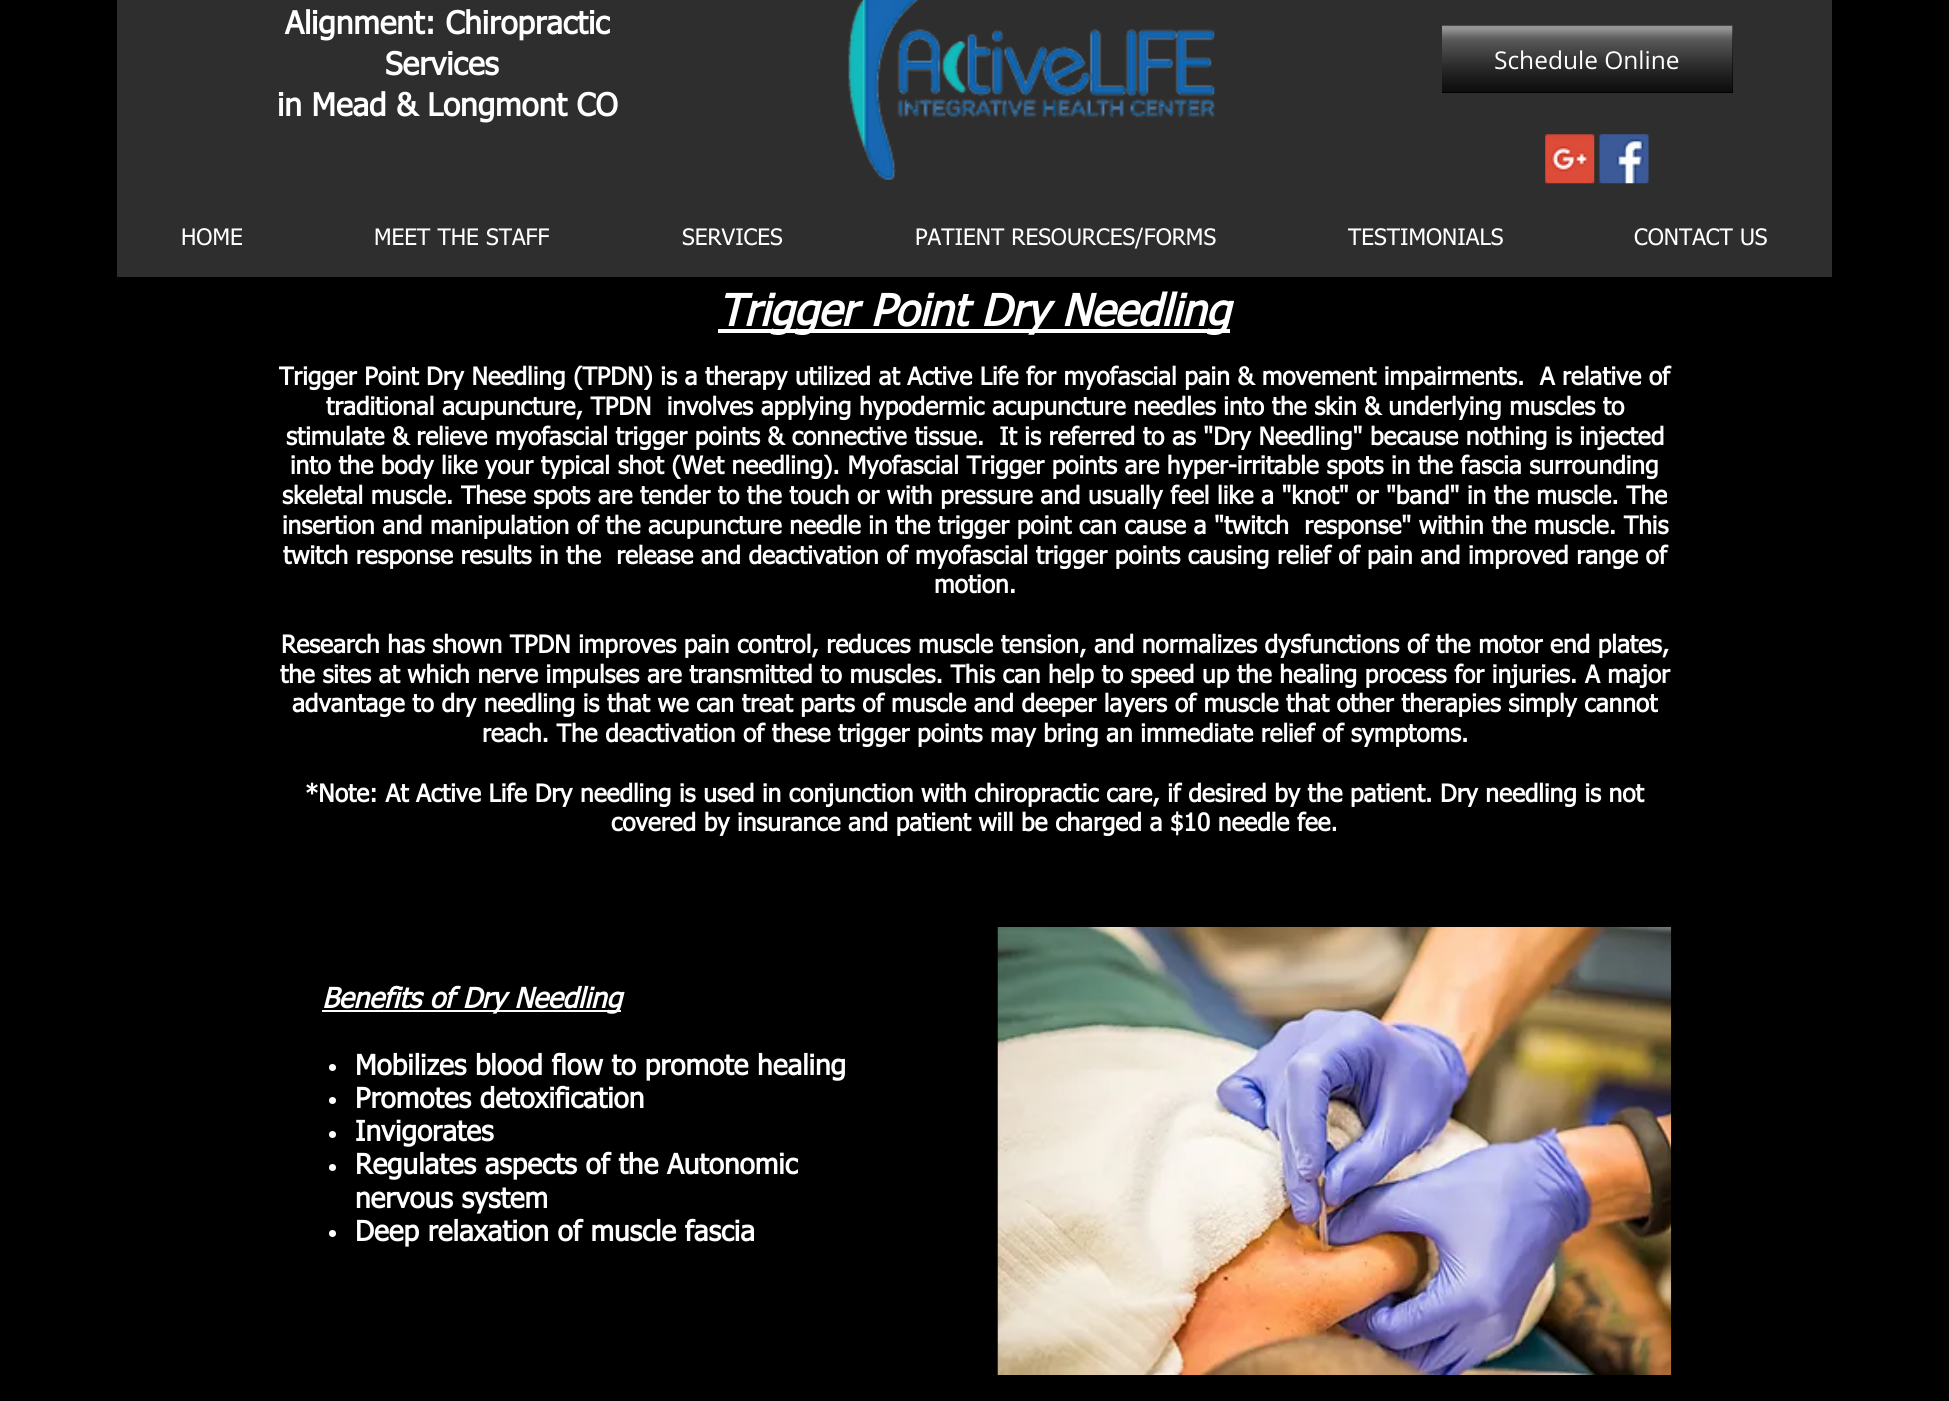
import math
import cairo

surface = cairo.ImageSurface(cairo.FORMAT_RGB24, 1949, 1401)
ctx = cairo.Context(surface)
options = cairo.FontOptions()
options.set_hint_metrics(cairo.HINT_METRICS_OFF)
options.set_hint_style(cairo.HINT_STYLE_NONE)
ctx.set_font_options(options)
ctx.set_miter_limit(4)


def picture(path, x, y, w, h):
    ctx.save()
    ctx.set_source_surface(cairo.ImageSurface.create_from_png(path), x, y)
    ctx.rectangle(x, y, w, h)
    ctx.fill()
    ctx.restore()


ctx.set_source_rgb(0, 0, 0)
ctx.paint()
ctx.set_source_rgb(0.184, 0.18, 0.18)
ctx.rectangle(117, 0, 1715, 277)
ctx.fill()
ctx.select_font_face("tahoma", cairo.FONT_SLANT_NORMAL, cairo.FONT_WEIGHT_BOLD)
ctx.set_font_size(31.5)
ctx.set_source_rgb(1, 1, 1)
ctx.move_to(285, 34)
ctx.show_text("Alignment: Chiropractic")
ctx.move_to(385, 75)
ctx.show_text("Services")
ctx.move_to(277, 116)
ctx.show_text("in Mead & Longmont CO")
picture("img1.png", 848, 0, 367, 180)
ctx.set_source_rgb(0, 0, 0)
ctx.rectangle(1442, 26, 291, 67)
ctx.fill()
picture("img2.png", 1442, 25, 291, 67)
ctx.select_font_face("Open Sans")
ctx.set_font_size(24.5)
ctx.set_source_rgb(1, 1, 1)
ctx.move_to(1494, 69)
ctx.show_text("Schedule Online")
picture("img3.png", 1545, 134, 50, 50)
picture("img4.png", 1599, 134, 50, 50)
ctx.select_font_face("tahoma")
ctx.set_font_size(22.75)
ctx.move_to(181, 245)
ctx.show_text("HOME")
ctx.move_to(374, 245)
ctx.show_text("MEET THE STAFF")
ctx.move_to(682, 245)
ctx.show_text("SERVICES")
ctx.move_to(915, 245)
ctx.show_text("PATIENT RESOURCES/FORMS")
ctx.move_to(1348, 245)
ctx.show_text("TESTIMONIALS")
ctx.move_to(1634, 245)
ctx.show_text("CONTACT US")
ctx.rectangle(718, 329, 512, 4)
ctx.fill()
ctx.select_font_face("tahoma", cairo.FONT_SLANT_ITALIC, cairo.FONT_WEIGHT_BOLD)
ctx.set_font_size(43.75)
ctx.move_to(718, 326)
ctx.show_text("Trigger Point Dry Needling")
ctx.select_font_face("tahoma", cairo.FONT_SLANT_NORMAL, cairo.FONT_WEIGHT_BOLD)
ctx.set_font_size(24.5)
ctx.move_to(279, 385)
ctx.show_text("Trigger Point Dry Needling (TPDN) is a therapy utilized at Active Life for myofascial pain & movement impairments.  A relative of")
ctx.move_to(326, 415)
ctx.show_text("traditional acupuncture, TPDN  involves applying hypodermic acupuncture needles into the skin & underlying muscles to")
ctx.move_to(286, 445)
ctx.show_text("stimulate & relieve myofascial trigger points & connective tissue.  It is referred to as \"Dry Needling\" because nothing is injected")
ctx.move_to(290, 474)
ctx.show_text("into the body like your typical shot (Wet needling). Myofascial Trigger points are hyper-irritable spots in the fascia surrounding")
ctx.move_to(282, 504)
ctx.show_text("skeletal muscle. These spots are tender to the touch or with pressure and usually feel like a \"knot\" or \"band\" in the muscle. The")
ctx.move_to(282, 534)
ctx.show_text("insertion and manipulation of the acupuncture needle in the trigger point can cause a \"twitch  response\" within the muscle. This")
ctx.move_to(283, 564)
ctx.show_text("twitch response results in the  release and deactivation of myofascial trigger points causing relief of pain and improved range of")
ctx.move_to(934, 593)
ctx.show_text("motion.")
ctx.move_to(281, 653)
ctx.show_text("Research has shown TPDN improves pain control, reduces muscle tension, and normalizes dysfunctions of the motor end plates,")
ctx.move_to(280, 683)
ctx.show_text("the sites at which nerve impulses are transmitted to muscles. This can help to speed up the healing process for injuries. A major")
ctx.move_to(292, 712)
ctx.show_text("advantage to dry needling is that we can treat parts of muscle and deeper layers of muscle that other therapies simply cannot")
ctx.move_to(482, 742)
ctx.show_text("reach. The deactivation of these trigger points may bring an immediate relief of symptoms.")
ctx.move_to(305, 802)
ctx.show_text("*Note: At Active Life Dry needling is used in conjunction with chiropractic care, if desired by the patient. Dry needling is not")
ctx.move_to(611, 831)
ctx.show_text("covered by insurance and patient will be charged a $10 needle fee.")
ctx.rectangle(322, 1010, 299, 2)
ctx.fill()
ctx.select_font_face("tahoma", cairo.FONT_SLANT_ITALIC, cairo.FONT_WEIGHT_BOLD)
ctx.set_font_size(28)
ctx.move_to(322, 1008)
ctx.show_text("Benefits of Dry Needling")
ctx.new_path()
ctx.arc(332.5, 1067.5, 3.5, 0, 2 * math.pi)
ctx.fill()
ctx.select_font_face("tahoma", cairo.FONT_SLANT_NORMAL, cairo.FONT_WEIGHT_BOLD)
ctx.move_to(355, 1075)
ctx.show_text("Mobilizes blood flow to promote healing")
ctx.new_path()
ctx.arc(332.5, 1100.5, 3.5, 0, 2 * math.pi)
ctx.fill()
ctx.move_to(355, 1108)
ctx.show_text("Promotes detoxification")
ctx.new_path()
ctx.arc(332.5, 1134.5, 3.5, 0, 2 * math.pi)
ctx.fill()
ctx.move_to(355, 1141)
ctx.show_text("Invigorates")
ctx.new_path()
ctx.arc(332.5, 1167.5, 3.5, 0, 2 * math.pi)
ctx.fill()
ctx.move_to(355, 1174)
ctx.show_text("Regulates aspects of the Autonomic")
ctx.move_to(355, 1208)
ctx.show_text("nervous system")
ctx.new_path()
ctx.arc(332.5, 1233.5, 3.5, 0, 2 * math.pi)
ctx.fill()
ctx.move_to(355, 1241)
ctx.show_text("Deep relaxation of muscle fascia")
picture("img5.png", 997, 927, 675, 448)
surface.write_to_png("page.png")
